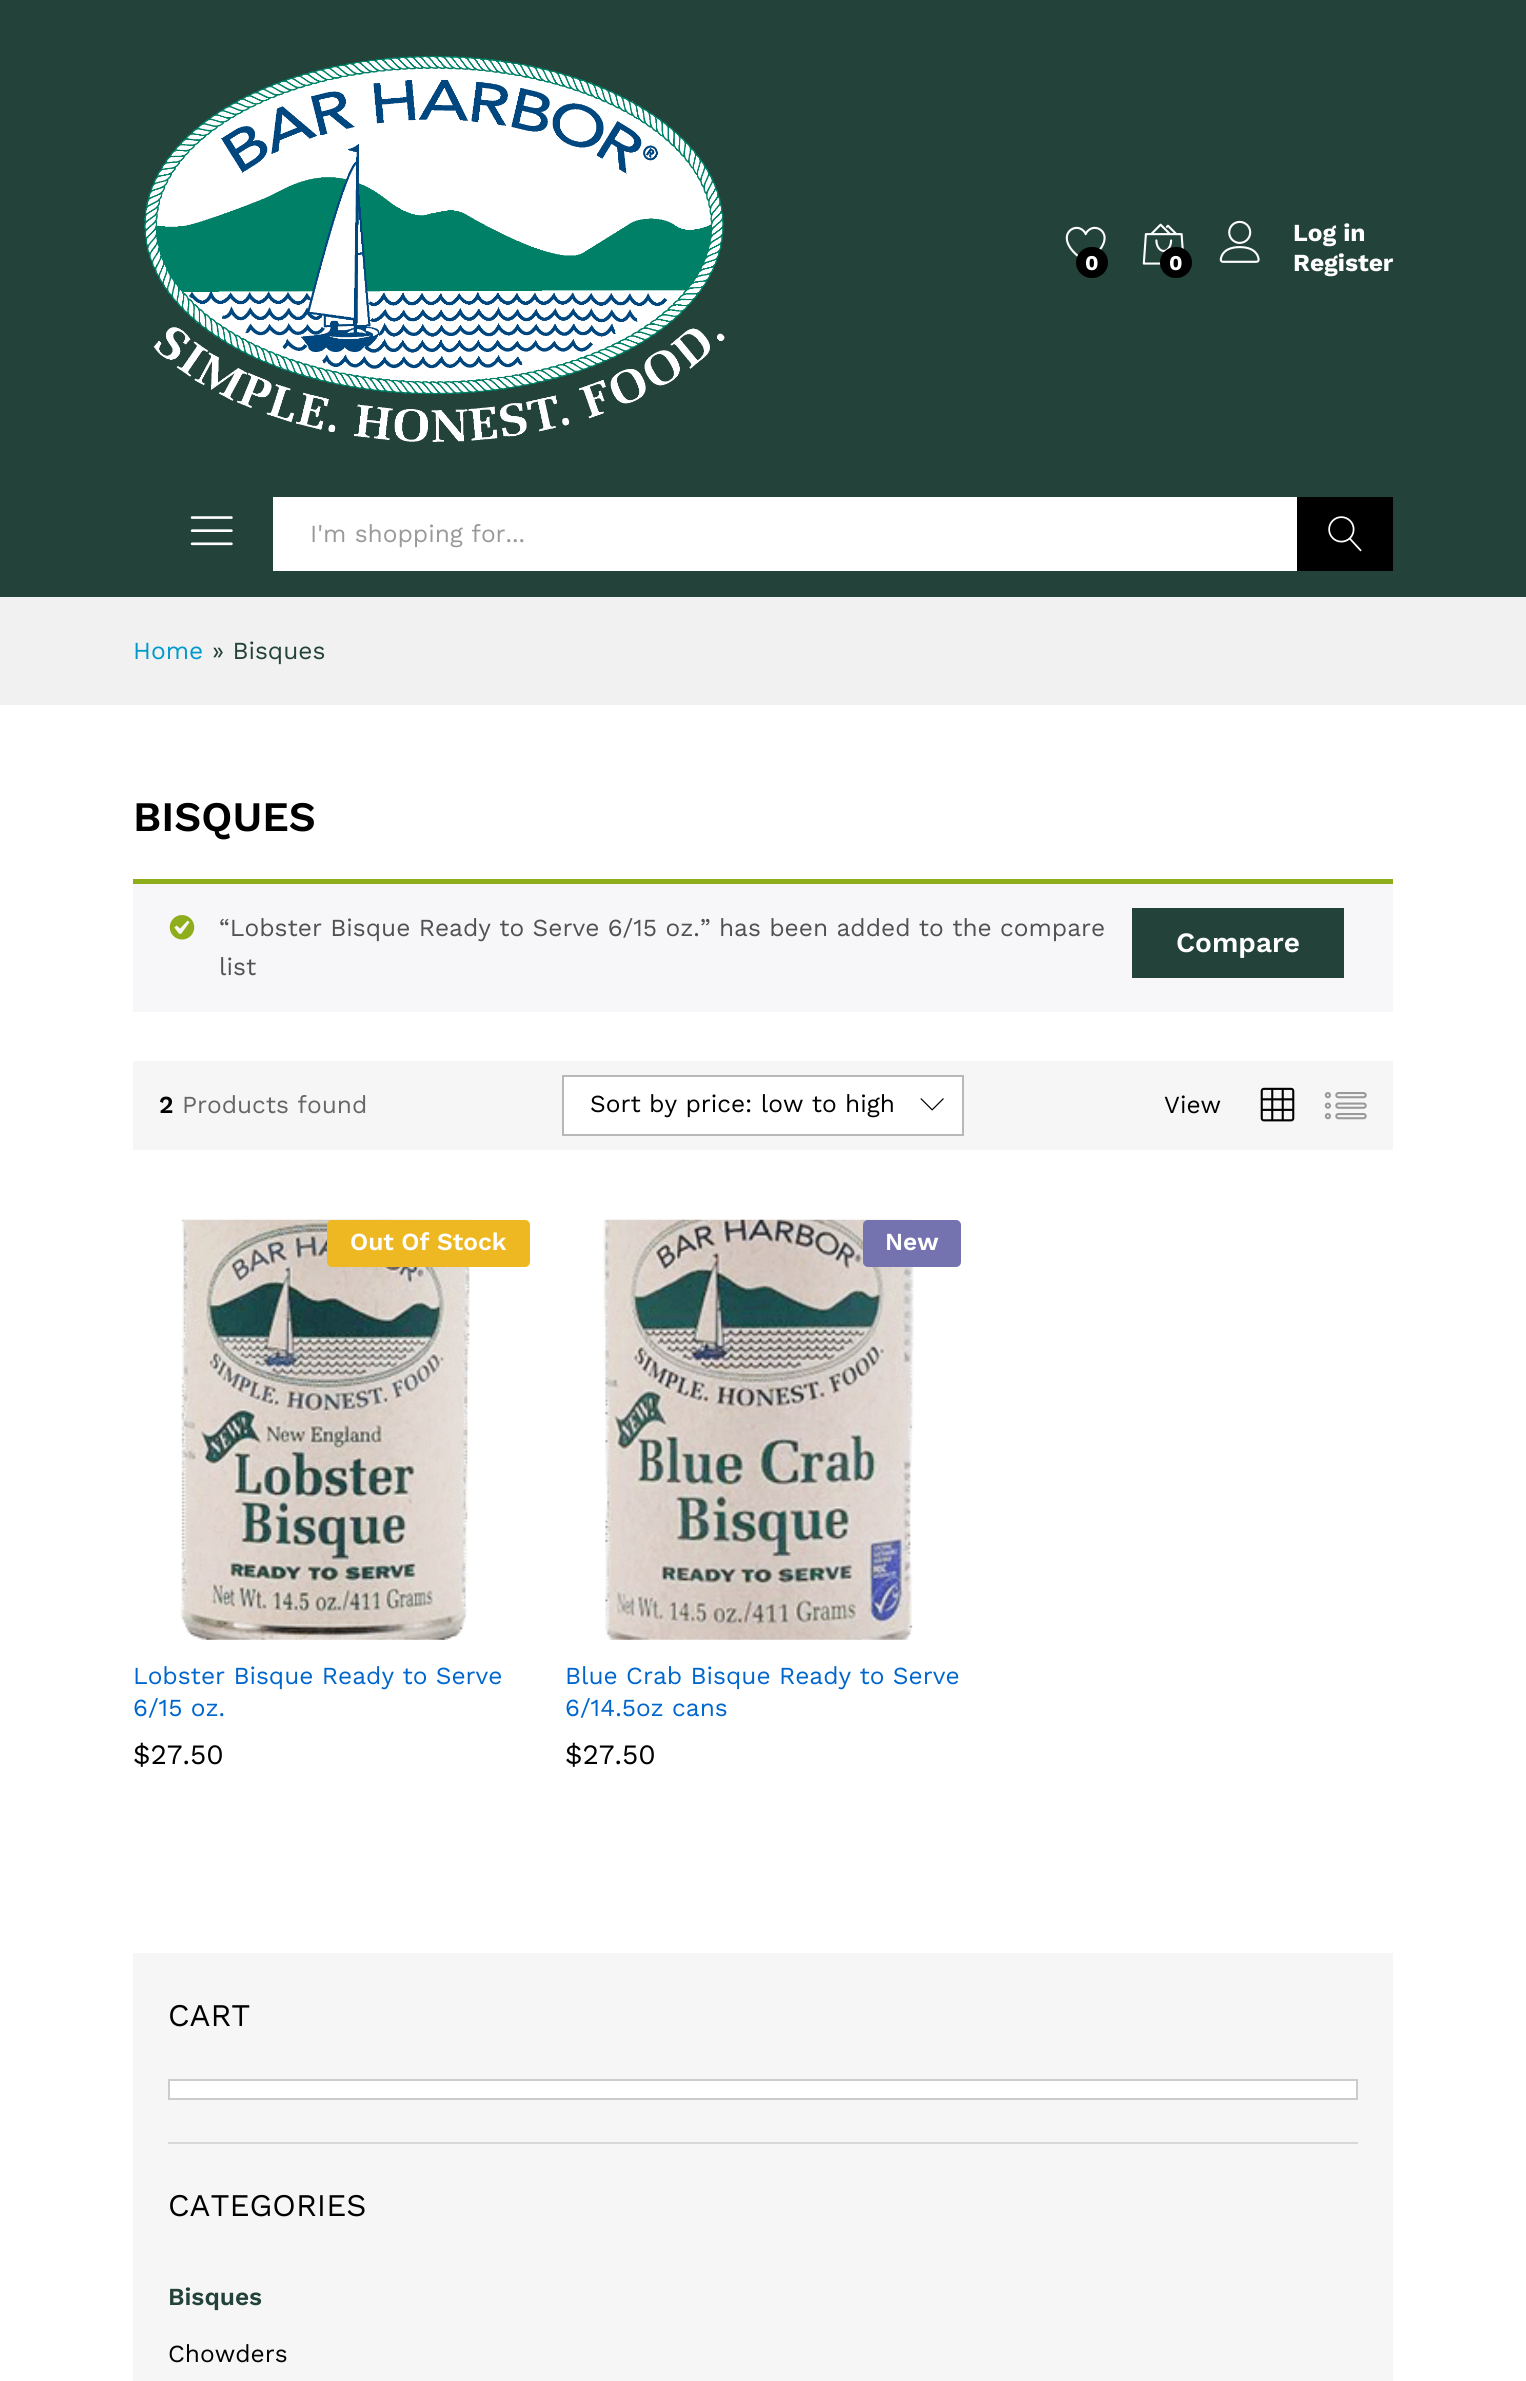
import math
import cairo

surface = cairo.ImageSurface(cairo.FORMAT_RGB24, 1526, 2381)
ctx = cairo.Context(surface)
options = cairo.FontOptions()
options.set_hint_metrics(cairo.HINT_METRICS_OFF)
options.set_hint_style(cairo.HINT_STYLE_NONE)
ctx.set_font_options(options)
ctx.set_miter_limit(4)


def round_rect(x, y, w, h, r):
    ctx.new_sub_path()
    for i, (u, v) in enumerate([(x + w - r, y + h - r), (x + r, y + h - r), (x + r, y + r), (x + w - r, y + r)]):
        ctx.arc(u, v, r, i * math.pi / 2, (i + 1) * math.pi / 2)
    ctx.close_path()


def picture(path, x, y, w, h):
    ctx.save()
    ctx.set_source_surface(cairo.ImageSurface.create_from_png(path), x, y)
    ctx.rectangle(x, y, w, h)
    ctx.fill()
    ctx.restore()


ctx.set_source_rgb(1, 1, 1)
ctx.paint()
ctx.set_source_rgb(0.137, 0.259, 0.224)
ctx.rectangle(0, 0, 1526, 597)
ctx.fill()
picture("img1.png", 144, 55, 581, 387)
picture("img2.png", 1065, 226, 41, 31)
ctx.set_source_rgb(0, 0, 0)
round_rect(1076, 247, 32, 31, 15.5)
ctx.fill()
ctx.select_font_face("Work Sans", cairo.FONT_SLANT_NORMAL, cairo.FONT_WEIGHT_BOLD)
ctx.set_font_size(21)
ctx.set_source_rgb(1, 1, 1)
ctx.move_to(1085, 270)
ctx.show_text("0")
picture("img3.png", 1142, 223, 42, 42)
ctx.set_source_rgb(0, 0, 0)
round_rect(1160, 247, 32, 31, 15.5)
ctx.fill()
ctx.set_source_rgb(1, 1, 1)
ctx.move_to(1169, 270)
ctx.show_text("0")
picture("img4.png", 1219, 220, 41, 43)
ctx.set_font_size(24.5)
ctx.move_to(1293, 241)
ctx.show_text("Log in")
ctx.move_to(1293, 271)
ctx.show_text("Register")
picture("img5.png", 190, 516, 43, 30)
ctx.rectangle(273, 497, 1024, 74)
ctx.fill()
ctx.select_font_face("Work Sans")
ctx.set_source_rgb(0.6, 0.6, 0.6)
ctx.move_to(310, 542)
ctx.show_text("I'm shopping for...")
ctx.set_source_rgb(0, 0, 0)
ctx.rectangle(1297, 497, 96, 74)
ctx.fill()
picture("img6.png", 1328, 516, 34, 36)
ctx.set_source_rgb(0.945, 0.945, 0.945)
ctx.rectangle(0, 597, 1526, 108)
ctx.fill()
ctx.set_source_rgb(0, 0.6, 0.8)
ctx.move_to(133, 659)
ctx.show_text("Home")
ctx.set_source_rgb(0.137, 0.259, 0.224)
ctx.move_to(212, 659)
ctx.show_text("» Bisques")
ctx.select_font_face("Work Sans SemiBold")
ctx.set_font_size(42)
ctx.set_source_rgb(0, 0, 0)
ctx.move_to(133, 831)
ctx.show_text("BISQUES")
ctx.set_source_rgb(0.965, 0.961, 0.973)
ctx.rectangle(133, 884, 1260, 128)
ctx.fill()
ctx.set_source_rgb(0.561, 0.682, 0.106)
ctx.rectangle(133, 879, 1260, 5)
ctx.fill()
picture("img7.png", 169, 915, 26, 25)
ctx.select_font_face("Work Sans")
ctx.set_font_size(24.5)
ctx.set_source_rgb(0.318, 0.318, 0.318)
ctx.move_to(219, 936)
ctx.show_text("“Lobster Bisque Ready to Serve 6/15 oz.” has been added to the compare")
ctx.set_source_rgb(0.137, 0.259, 0.224)
ctx.rectangle(1132, 908, 212, 70)
ctx.fill()
ctx.select_font_face("Work Sans SemiBold")
ctx.set_font_size(28)
ctx.set_source_rgb(1, 1, 1)
ctx.move_to(1176, 952)
ctx.show_text("Compare")
ctx.select_font_face("Work Sans")
ctx.set_font_size(24.5)
ctx.set_source_rgb(0.318, 0.318, 0.318)
ctx.move_to(219, 975)
ctx.show_text("list")
ctx.set_source_rgb(0.961, 0.961, 0.961)
ctx.rectangle(133, 1061, 1260, 89)
ctx.fill()
ctx.select_font_face("Work Sans SemiBold")
ctx.set_source_rgb(0, 0, 0)
ctx.move_to(159, 1113)
ctx.show_text("2")
ctx.select_font_face("Work Sans")
ctx.set_source_rgb(0.4, 0.4, 0.4)
ctx.move_to(182, 1113)
ctx.show_text("Products found")
ctx.set_source_rgb(1, 1, 1)
ctx.rectangle(563, 1076, 400, 59)
ctx.fill_preserve()
ctx.set_source_rgb(0.722, 0.722, 0.722)
ctx.stroke()
ctx.set_source_rgb(0, 0, 0)
ctx.move_to(590, 1112)
ctx.show_text("Sort by price: low to high")
picture("img8.png", 920, 1098, 24, 13)
ctx.move_to(1164, 1113)
ctx.show_text("View")
picture("img9.png", 1260, 1087, 35, 35)
picture("img10.png", 1324, 1092, 43, 28)
picture("img11.png", 180, 1219, 292, 421)
ctx.set_source_rgb(0.929, 0.722, 0.129)
round_rect(327, 1220, 203, 47, 5)
ctx.fill()
ctx.select_font_face("Work Sans SemiBold")
ctx.set_source_rgb(1, 1, 1)
ctx.move_to(350, 1250)
ctx.show_text("Out Of Stock")
ctx.select_font_face("Work Sans")
ctx.set_source_rgb(0, 0.4, 0.8)
ctx.move_to(133, 1684)
ctx.show_text("Lobster Bisque Ready to Serve")
ctx.move_to(133, 1716)
ctx.show_text("6/15 oz.")
ctx.set_font_size(28)
ctx.set_source_rgb(0, 0, 0)
ctx.move_to(133, 1764)
ctx.show_text("$27.50")
picture("img12.png", 603, 1219, 311, 421)
ctx.set_source_rgb(0.459, 0.451, 0.686)
round_rect(863, 1220, 98, 47, 5)
ctx.fill()
ctx.select_font_face("Work Sans SemiBold")
ctx.set_font_size(24.5)
ctx.set_source_rgb(1, 1, 1)
ctx.move_to(885, 1250)
ctx.show_text("New")
ctx.select_font_face("Work Sans")
ctx.set_source_rgb(0, 0.4, 0.8)
ctx.move_to(565, 1684)
ctx.show_text("Blue Crab Bisque Ready to Serve")
ctx.move_to(565, 1716)
ctx.show_text("6/14.5oz cans")
ctx.set_font_size(28)
ctx.set_source_rgb(0, 0, 0)
ctx.move_to(565, 1764)
ctx.show_text("$27.50")
ctx.set_source_rgb(0.961, 0.961, 0.961)
ctx.rectangle(133, 1953, 1260, 428)
ctx.fill()
ctx.set_font_size(31.5)
ctx.set_source_rgb(0, 0, 0)
ctx.move_to(168, 2026)
ctx.show_text("CART")
ctx.set_source_rgb(1, 1, 1)
ctx.rectangle(169, 2080, 1188, 19)
ctx.fill_preserve()
ctx.set_source_rgb(0.8, 0.8, 0.8)
ctx.stroke()
ctx.set_source_rgb(0.847, 0.847, 0.847)
ctx.rectangle(168, 2142, 1190, 2)
ctx.fill()
ctx.set_source_rgb(0, 0, 0)
ctx.move_to(168, 2216)
ctx.show_text("CATEGORIES")
ctx.select_font_face("Work Sans SemiBold")
ctx.set_font_size(24.5)
ctx.set_source_rgb(0.137, 0.259, 0.224)
ctx.move_to(168, 2305)
ctx.show_text("Bisques")
ctx.select_font_face("Work Sans")
ctx.set_source_rgb(0, 0, 0)
ctx.move_to(168, 2362)
ctx.show_text("Chowders")
surface.write_to_png("page.png")
